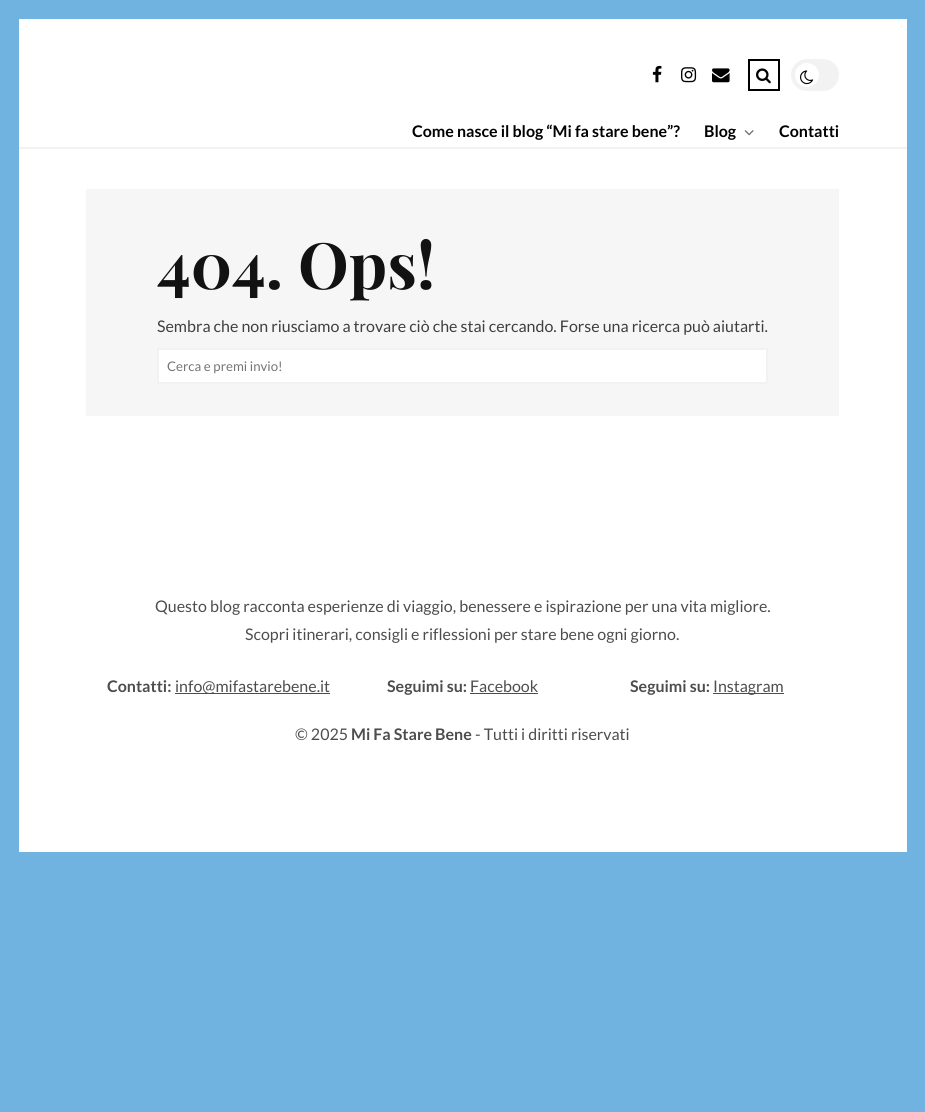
import math
import cairo

surface = cairo.ImageSurface(cairo.FORMAT_RGB24, 925, 1112)
ctx = cairo.Context(surface)
options = cairo.FontOptions()
options.set_hint_metrics(cairo.HINT_METRICS_OFF)
options.set_hint_style(cairo.HINT_STYLE_NONE)
ctx.set_font_options(options)
ctx.set_miter_limit(4)


def round_rect(x, y, w, h, r):
    ctx.new_sub_path()
    for i, (u, v) in enumerate([(x + w - r, y + h - r), (x + r, y + h - r), (x + r, y + r), (x + w - r, y + r)]):
        ctx.arc(u, v, r, i * math.pi / 2, (i + 1) * math.pi / 2)
    ctx.close_path()


def picture(path, x, y, w, h):
    ctx.save()
    ctx.set_source_surface(cairo.ImageSurface.create_from_png(path), x, y)
    ctx.rectangle(x, y, w, h)
    ctx.fill()
    ctx.restore()


ctx.set_source_rgb(0.443, 0.702, 0.878)
ctx.paint()
ctx.set_source_rgb(1, 1, 1)
ctx.rectangle(19, 19, 888, 833)
ctx.fill()
ctx.set_source_rgb(0.949, 0.949, 0.949)
ctx.rectangle(19, 147, 888, 2)
ctx.fill()
picture("img1.png", 652, 65, 10, 18)
picture("img2.png", 681, 67, 16, 16)
picture("img3.png", 712, 68, 18, 15)
ctx.rectangle(749, 60, 30, 30)
ctx.set_source_rgb(0, 0, 0)
ctx.stroke()
picture("img4.png", 756, 68, 15, 16)
ctx.set_source_rgb(0.949, 0.949, 0.949)
round_rect(791, 59, 48, 32, 16)
ctx.fill()
ctx.set_source_rgb(1, 1, 1)
ctx.arc(807, 75, 12, 0, 2 * math.pi)
ctx.fill()
picture("img5.png", 800, 70, 14, 15)
ctx.select_font_face("Lato", cairo.FONT_SLANT_NORMAL, cairo.FONT_WEIGHT_BOLD)
ctx.set_font_size(16)
ctx.set_source_rgb(0, 0, 0)
ctx.move_to(412, 137)
ctx.show_text("Come nasce il blog “Mi fa stare bene”?")
ctx.move_to(704, 137)
ctx.show_text("Blog")
picture("img6.png", 744, 130, 10, 6)
ctx.move_to(779, 137)
ctx.show_text("Contatti")
ctx.set_source_rgb(0.961, 0.961, 0.961)
ctx.rectangle(86, 189, 753, 227)
ctx.fill()
ctx.select_font_face("Playfair Display", cairo.FONT_SLANT_NORMAL, cairo.FONT_WEIGHT_BOLD)
ctx.set_font_size(64)
ctx.set_source_rgb(0.071, 0.071, 0.071)
ctx.move_to(157, 289)
ctx.show_text("404. Ops!")
ctx.select_font_face("Lato")
ctx.set_font_size(16)
ctx.set_source_rgb(0.247, 0.247, 0.247)
ctx.move_to(157, 332)
ctx.show_text("Sembra che non riusciamo a trovare ciò che stai cercando. Forse una ricerca può aiutarti.")
ctx.set_source_rgb(1, 1, 1)
ctx.rectangle(158, 349, 609, 34)
ctx.fill_preserve()
ctx.set_source_rgb(0.949, 0.949, 0.949)
ctx.stroke()
ctx.set_font_size(13.25)
ctx.set_source_rgb(0.459, 0.459, 0.459)
ctx.move_to(167, 371)
ctx.show_text("Cerca e premi invio!")
ctx.set_font_size(16)
ctx.set_source_rgb(0.302, 0.302, 0.302)
ctx.move_to(155, 612)
ctx.show_text("Questo blog racconta esperienze di viaggio, benessere e ispirazione per una vita migliore.")
ctx.move_to(245, 640)
ctx.show_text("Scopri itinerari, consigli e riflessioni per stare bene ogni giorno.")
ctx.select_font_face("Lato", cairo.FONT_SLANT_NORMAL, cairo.FONT_WEIGHT_BOLD)
ctx.move_to(107, 692)
ctx.show_text("Contatti:")
ctx.rectangle(175, 693, 155, 1)
ctx.fill()
ctx.select_font_face("Lato")
ctx.move_to(175, 692)
ctx.show_text("info@mifastarebene.it")
ctx.select_font_face("Lato", cairo.FONT_SLANT_NORMAL, cairo.FONT_WEIGHT_BOLD)
ctx.move_to(387, 692)
ctx.show_text("Seguimi su:")
ctx.select_font_face("Lato")
ctx.move_to(470, 692)
ctx.show_text("Facebook")
ctx.rectangle(470, 693, 68, 1)
ctx.fill()
ctx.select_font_face("Lato", cairo.FONT_SLANT_NORMAL, cairo.FONT_WEIGHT_BOLD)
ctx.move_to(630, 692)
ctx.show_text("Seguimi su:")
ctx.rectangle(713, 693, 71, 1)
ctx.fill()
ctx.select_font_face("Lato")
ctx.move_to(713, 692)
ctx.show_text("Instagram")
ctx.move_to(295, 740)
ctx.show_text("© 2025")
ctx.select_font_face("Lato", cairo.FONT_SLANT_NORMAL, cairo.FONT_WEIGHT_BOLD)
ctx.move_to(351, 740)
ctx.show_text("Mi Fa Stare Bene")
ctx.select_font_face("Lato")
ctx.move_to(475, 740)
ctx.show_text("- Tutti i diritti riservati")
surface.write_to_png("page.png")
